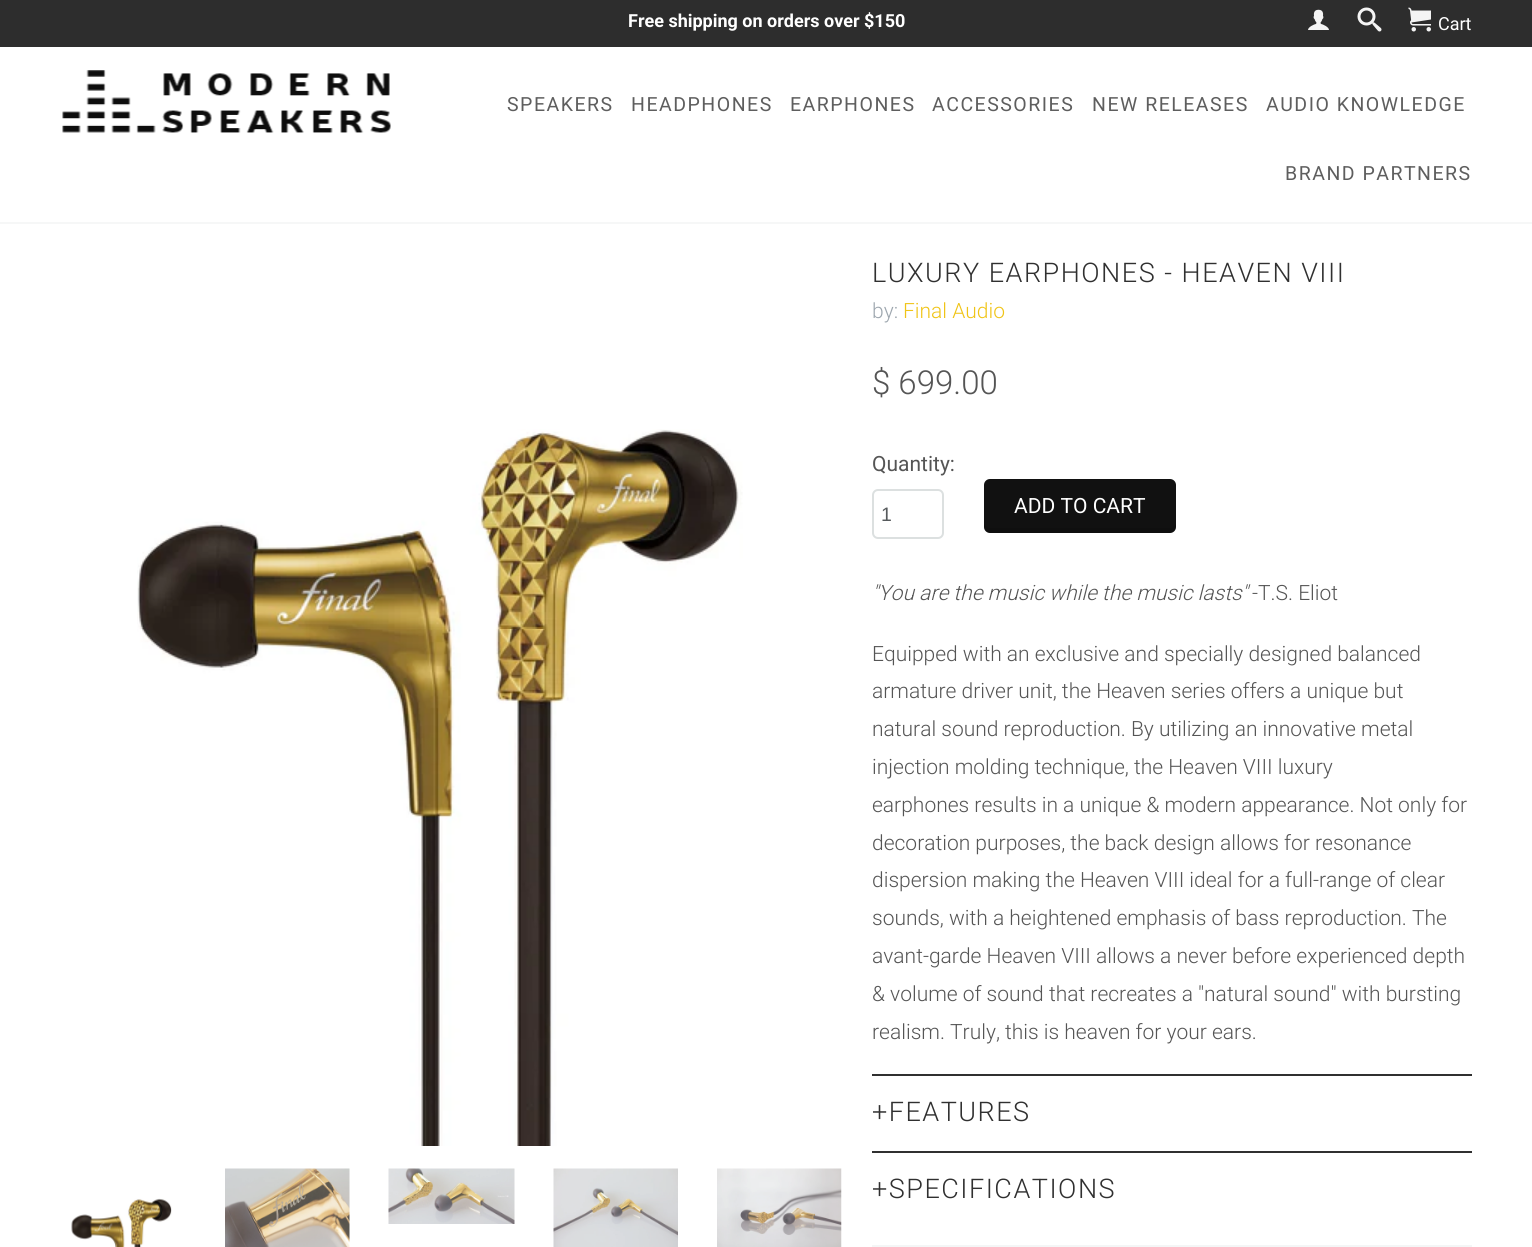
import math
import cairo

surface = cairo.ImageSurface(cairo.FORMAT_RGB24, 1532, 1247)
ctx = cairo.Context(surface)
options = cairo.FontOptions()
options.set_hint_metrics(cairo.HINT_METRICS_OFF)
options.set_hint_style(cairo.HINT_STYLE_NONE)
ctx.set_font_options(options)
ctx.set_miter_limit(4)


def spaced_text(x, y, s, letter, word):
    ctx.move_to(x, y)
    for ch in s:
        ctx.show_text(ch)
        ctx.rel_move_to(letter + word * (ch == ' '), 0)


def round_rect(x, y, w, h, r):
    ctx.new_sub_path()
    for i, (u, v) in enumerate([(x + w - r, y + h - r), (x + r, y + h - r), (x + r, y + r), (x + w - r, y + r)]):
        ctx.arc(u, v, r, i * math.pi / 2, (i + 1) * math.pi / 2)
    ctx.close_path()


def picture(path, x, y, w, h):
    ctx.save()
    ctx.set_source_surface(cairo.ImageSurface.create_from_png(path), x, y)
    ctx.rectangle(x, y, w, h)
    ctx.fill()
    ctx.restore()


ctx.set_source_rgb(1, 1, 1)
ctx.paint()
ctx.set_source_rgb(0.961, 0.965, 0.965)
ctx.rectangle(0, 222, 1532, 2)
ctx.fill()
ctx.set_source_rgb(0.176, 0.176, 0.176)
ctx.rectangle(0, 0, 1532, 47)
ctx.fill()
ctx.select_font_face("Roboto", cairo.FONT_SLANT_NORMAL, cairo.FONT_WEIGHT_BOLD)
ctx.set_font_size(18)
ctx.set_source_rgb(1, 1, 1)
ctx.move_to(628, 27)
ctx.show_text("Free shipping on orders over $150")
picture("img1.png", 1308, 9, 21, 21)
picture("img2.png", 1357, 7, 25, 25)
picture("img3.png", 1408, 7, 23, 25)
ctx.select_font_face("Roboto")
ctx.move_to(1438, 30)
ctx.show_text("Cart")
picture("img4.png", 62, 70, 329, 63)
ctx.set_font_size(19.5)
ctx.set_source_rgb(0.369, 0.369, 0.369)
spaced_text(507, 111, "SPEAKERS", 1.5, 0)
spaced_text(631, 111, "HEADPHONES", 1.5, 0)
spaced_text(790, 111, "EARPHONES", 1.5, 0)
spaced_text(932, 111, "ACCESSORIES", 1.5, 0)
spaced_text(1092, 111, "NEW RELEASES", 1.5, 0)
spaced_text(1266, 111, "AUDIO KNOWLEDGE", 1.5, 0)
spaced_text(1285, 180, "BRAND PARTNERS", 1.5, 0)
picture("img5.png", 137, 429, 606, 717)
picture("img6.png", 71, 1198, 101, 49)
picture("img7.png", 225, 1168, 125, 79)
picture("img8.png", 388, 1168, 127, 56)
picture("img9.png", 553, 1168, 125, 79)
picture("img10.png", 717, 1168, 125, 79)
ctx.select_font_face("Roboto Light")
ctx.set_font_size(27)
ctx.set_source_rgb(0.188, 0.188, 0.188)
spaced_text(872, 282, "LUXURY EARPHONES - HEAVEN VIII", 1.5, 0)
ctx.set_font_size(21)
ctx.set_source_rgb(0.616, 0.651, 0.682)
ctx.move_to(872, 318)
ctx.show_text("by:")
ctx.set_source_rgb(0.941, 0.769, 0.09)
ctx.move_to(903, 318)
ctx.show_text("Final Audio")
ctx.set_font_size(33)
ctx.set_source_rgb(0.333, 0.333, 0.333)
ctx.move_to(872, 394)
ctx.show_text("$ 699.00")
ctx.select_font_face("Roboto")
ctx.set_font_size(21)
ctx.move_to(872, 471)
ctx.show_text("Quantity:")
round_rect(873, 490, 70, 48, 5)
ctx.set_source_rgb(0.863, 0.878, 0.878)
ctx.stroke()
ctx.select_font_face("Liberation Sans")
ctx.set_font_size(19.5)
ctx.set_source_rgb(0.337, 0.353, 0.361)
ctx.move_to(881, 521)
ctx.show_text("1")
ctx.set_source_rgb(0.067, 0.067, 0.067)
round_rect(984, 479, 192, 54, 6)
ctx.fill()
ctx.set_source_rgba(0, 0, 0, 0.1)
ctx.new_path()
ctx.move_to(984, 522)
ctx.line_to(984, 527)
ctx.curve_to(984, 530, 987, 533, 990, 533)
ctx.line_to(1170, 533)
ctx.curve_to(1173, 533, 1176, 530, 1176, 527)
ctx.line_to(1176, 522)
ctx.curve_to(1176, 525, 1173, 528, 1170, 528)
ctx.line_to(990, 528)
ctx.curve_to(987, 528, 984, 525, 984, 522)
ctx.close_path()
ctx.fill()
ctx.select_font_face("Roboto")
ctx.set_font_size(21)
ctx.set_source_rgb(1, 1, 1)
ctx.move_to(1014, 513)
ctx.show_text("ADD TO CART")
ctx.select_font_face("Roboto Light", cairo.FONT_SLANT_ITALIC)
ctx.set_source_rgb(0.333, 0.333, 0.333)
ctx.move_to(872, 600)
ctx.show_text("\"You are the music while the music lasts\"")
ctx.select_font_face("Roboto Light")
ctx.move_to(1252, 600)
ctx.show_text("-T.S. Eliot")
ctx.move_to(872, 661)
ctx.show_text("Equipped with an exclusive and specially designed balanced")
ctx.move_to(872, 698)
ctx.show_text("armature driver unit, the Heaven series offers a unique but")
ctx.move_to(872, 736)
ctx.show_text("natural sound reproduction. By utilizing an innovative metal")
ctx.move_to(872, 774)
ctx.show_text("injection molding technique, the Heaven VIII luxury")
ctx.move_to(872, 812)
ctx.show_text("earphones results in a unique & modern appearance. Not only for")
ctx.move_to(872, 850)
ctx.show_text("decoration purposes, the back design allows for resonance")
ctx.move_to(872, 887)
ctx.show_text("dispersion making the Heaven VIII ideal for a full-range of clear")
ctx.move_to(872, 925)
ctx.show_text("sounds, with a heightened emphasis of bass reproduction. The")
ctx.move_to(872, 963)
ctx.show_text("avant-garde Heaven VIII allows a never before experienced depth")
ctx.move_to(872, 1001)
ctx.show_text("& volume of sound that recreates a \"natural sound\" with bursting")
ctx.move_to(872, 1039)
ctx.show_text("realism. Truly, this is heaven for your ears.")
ctx.set_source_rgb(0.188, 0.188, 0.188)
ctx.rectangle(872, 1074, 600, 2)
ctx.fill()
ctx.set_font_size(27)
spaced_text(872, 1121, "+FEATURES", 1.5, 0)
ctx.rectangle(872, 1151, 600, 2)
ctx.fill()
spaced_text(872, 1198, "+SPECIFICATIONS", 1.5, 0)
ctx.set_source_rgb(0.957, 0.961, 0.961)
ctx.rectangle(872, 1245, 600, 2)
ctx.fill()
surface.write_to_png("page.png")
